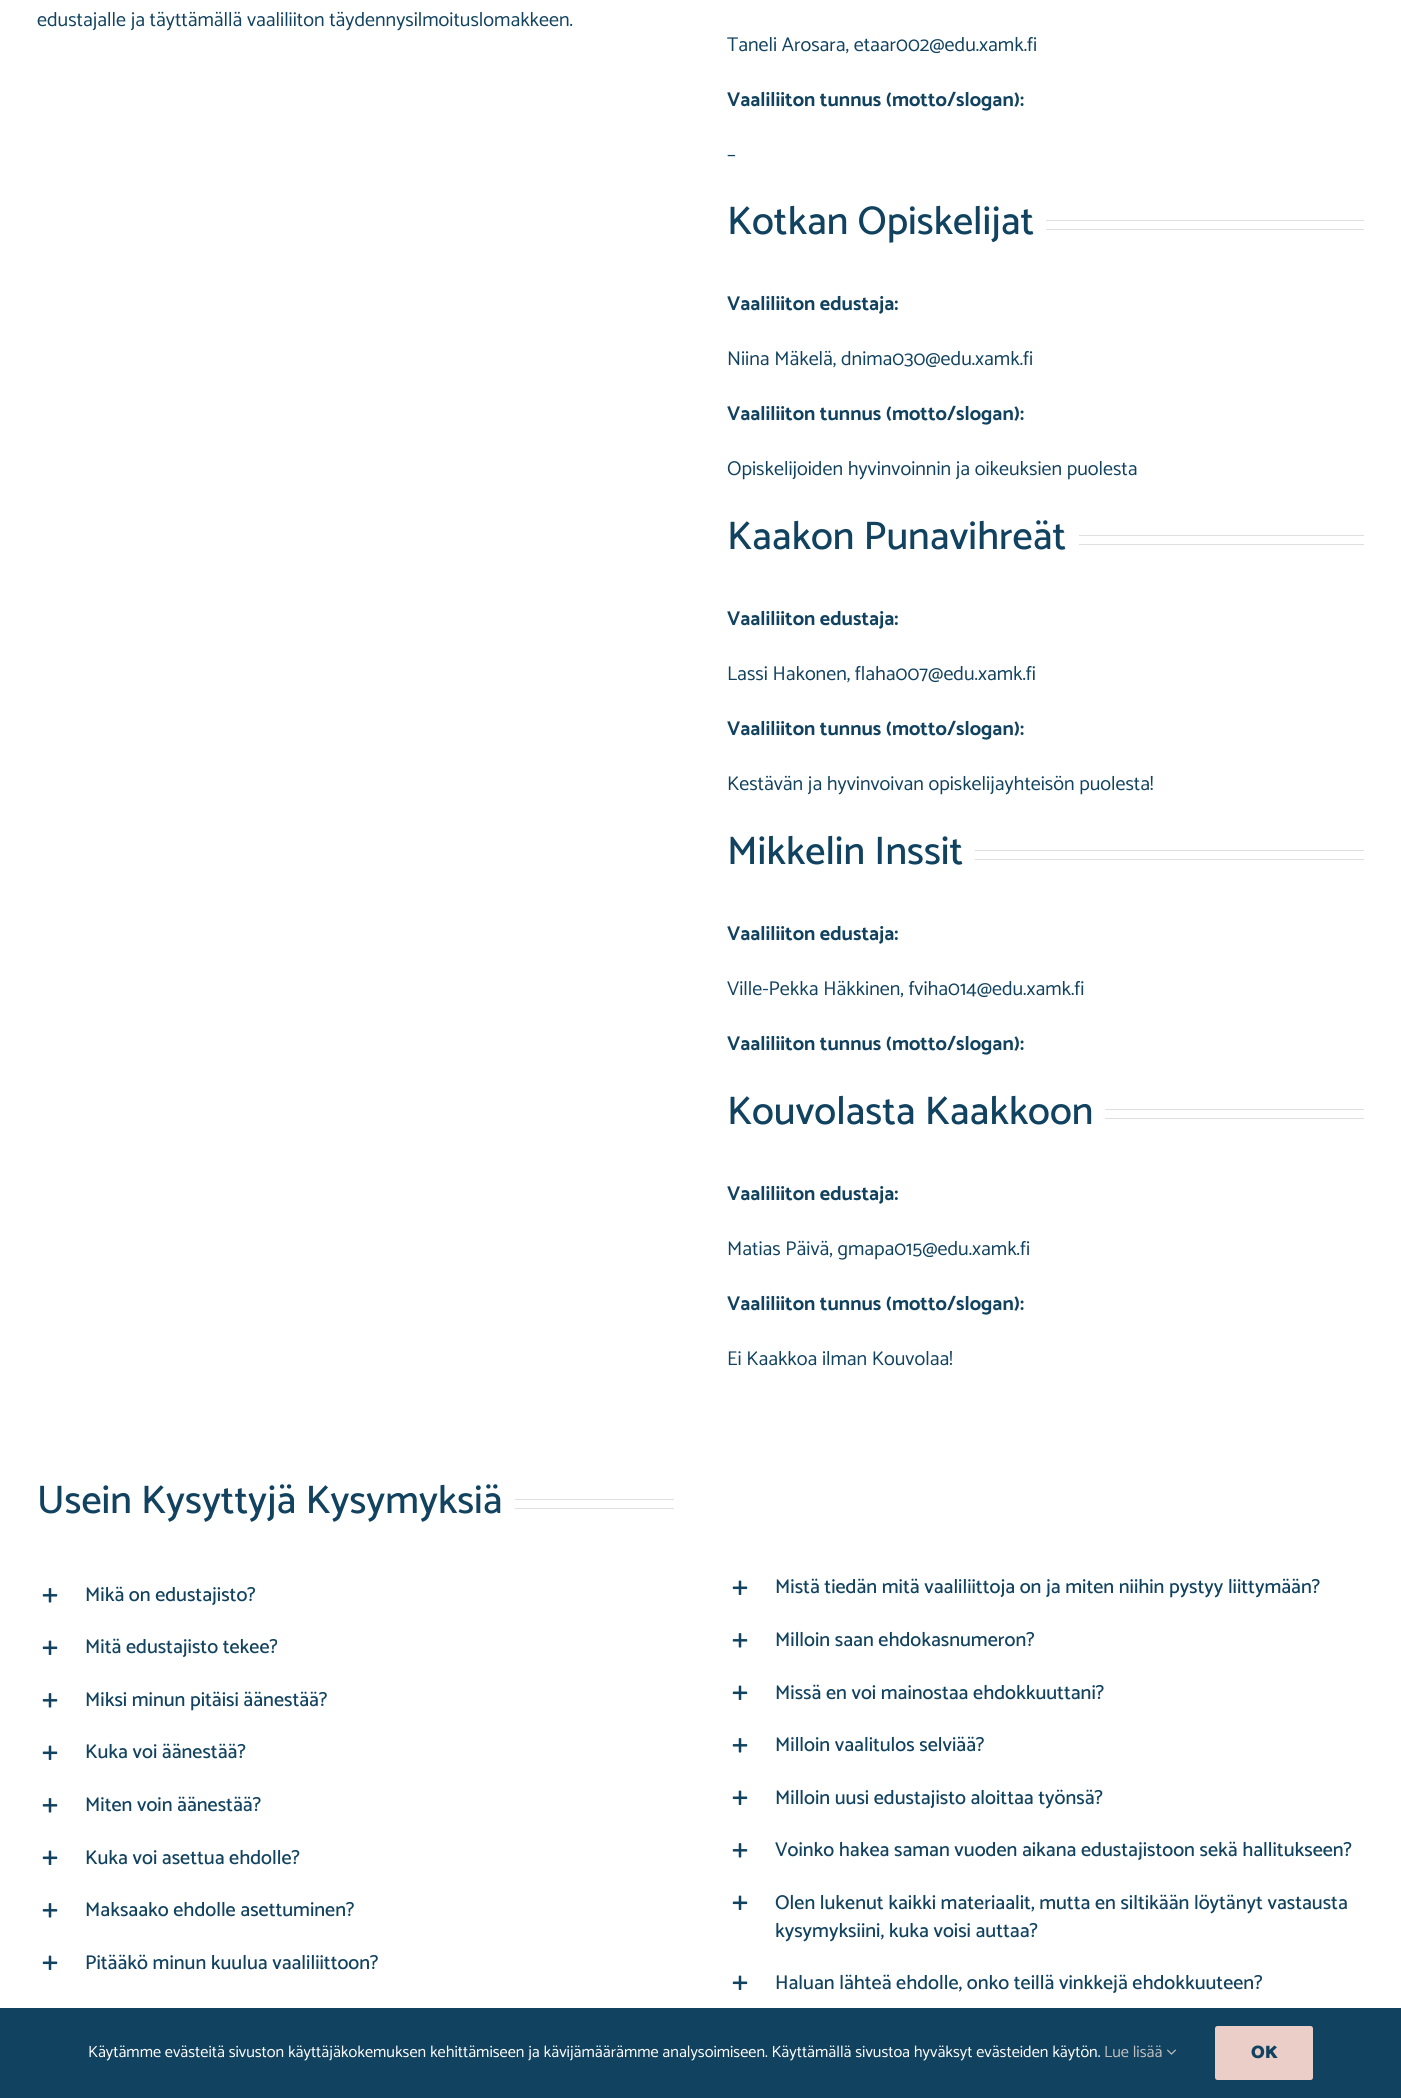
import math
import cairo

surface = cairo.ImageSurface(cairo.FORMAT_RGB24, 1401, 2098)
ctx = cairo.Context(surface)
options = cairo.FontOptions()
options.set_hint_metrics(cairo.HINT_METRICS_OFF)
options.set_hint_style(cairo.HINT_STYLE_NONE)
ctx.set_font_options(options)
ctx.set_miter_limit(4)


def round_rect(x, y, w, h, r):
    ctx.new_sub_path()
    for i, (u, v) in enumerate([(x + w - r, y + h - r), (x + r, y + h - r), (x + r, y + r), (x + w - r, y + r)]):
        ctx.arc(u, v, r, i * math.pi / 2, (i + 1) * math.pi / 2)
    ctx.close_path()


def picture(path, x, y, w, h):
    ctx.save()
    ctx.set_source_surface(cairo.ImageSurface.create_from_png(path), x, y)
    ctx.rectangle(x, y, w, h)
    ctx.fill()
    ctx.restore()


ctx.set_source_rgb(1, 1, 1)
ctx.paint()
ctx.select_font_face("Catamaran")
ctx.set_font_size(20)
ctx.set_source_rgb(0.067, 0.259, 0.373)
ctx.move_to(37, 26)
ctx.show_text("edustajalle ja täyttämällä vaaliliiton täydennysilmoituslomakkeen.")
ctx.move_to(727, 51)
ctx.show_text("Taneli Arosara, etaar002@edu.xamk.fi")
ctx.select_font_face("Catamaran", cairo.FONT_SLANT_NORMAL, cairo.FONT_WEIGHT_BOLD)
ctx.move_to(727, 106)
ctx.show_text("Vaaliliiton tunnus (motto/slogan):")
ctx.select_font_face("Catamaran")
ctx.move_to(727, 161)
ctx.show_text("–")
ctx.select_font_face("Catamaran Medium")
ctx.set_font_size(40)
ctx.move_to(727, 234)
ctx.show_text("Kotkan Opiskelijat")
ctx.set_source_rgb(0.878, 0.871, 0.871)
ctx.rectangle(1046, 220, 318, 1)
ctx.fill()
ctx.rectangle(1046, 229, 318, 1)
ctx.fill()
ctx.select_font_face("Catamaran", cairo.FONT_SLANT_NORMAL, cairo.FONT_WEIGHT_BOLD)
ctx.set_font_size(20)
ctx.set_source_rgb(0.067, 0.259, 0.373)
ctx.move_to(727, 310)
ctx.show_text("Vaaliliiton edustaja:")
ctx.select_font_face("Catamaran")
ctx.move_to(727, 365)
ctx.show_text("Niina Mäkelä, dnima030@edu.xamk.fi")
ctx.select_font_face("Catamaran", cairo.FONT_SLANT_NORMAL, cairo.FONT_WEIGHT_BOLD)
ctx.move_to(727, 420)
ctx.show_text("Vaaliliiton tunnus (motto/slogan):")
ctx.select_font_face("Catamaran")
ctx.move_to(727, 475)
ctx.show_text("Opiskelijoiden hyvinvoinnin ja oikeuksien puolesta")
ctx.select_font_face("Catamaran Medium")
ctx.set_font_size(40)
ctx.move_to(727, 549)
ctx.show_text("Kaakon Punavihreät")
ctx.set_source_rgb(0.878, 0.871, 0.871)
ctx.rectangle(1079, 535, 285, 1)
ctx.fill()
ctx.rectangle(1079, 544, 285, 1)
ctx.fill()
ctx.select_font_face("Catamaran", cairo.FONT_SLANT_NORMAL, cairo.FONT_WEIGHT_BOLD)
ctx.set_font_size(20)
ctx.set_source_rgb(0.067, 0.259, 0.373)
ctx.move_to(727, 625)
ctx.show_text("Vaaliliiton edustaja:")
ctx.select_font_face("Catamaran")
ctx.move_to(727, 680)
ctx.show_text("Lassi Hakonen, flaha007@edu.xamk.fi")
ctx.select_font_face("Catamaran", cairo.FONT_SLANT_NORMAL, cairo.FONT_WEIGHT_BOLD)
ctx.move_to(727, 735)
ctx.show_text("Vaaliliiton tunnus (motto/slogan):")
ctx.select_font_face("Catamaran")
ctx.move_to(727, 790)
ctx.show_text("Kestävän ja hyvinvoivan opiskelijayhteisön puolesta!")
ctx.select_font_face("Catamaran Medium")
ctx.set_font_size(40)
ctx.move_to(727, 864)
ctx.show_text("Mikkelin Inssit")
ctx.set_source_rgb(0.878, 0.871, 0.871)
ctx.rectangle(975, 850, 389, 1)
ctx.fill()
ctx.rectangle(975, 859, 389, 1)
ctx.fill()
ctx.select_font_face("Catamaran", cairo.FONT_SLANT_NORMAL, cairo.FONT_WEIGHT_BOLD)
ctx.set_font_size(20)
ctx.set_source_rgb(0.067, 0.259, 0.373)
ctx.move_to(727, 940)
ctx.show_text("Vaaliliiton edustaja:")
ctx.select_font_face("Catamaran")
ctx.move_to(727, 995)
ctx.show_text("Ville-Pekka Häkkinen, fviha014@edu.xamk.fi")
ctx.select_font_face("Catamaran", cairo.FONT_SLANT_NORMAL, cairo.FONT_WEIGHT_BOLD)
ctx.move_to(727, 1050)
ctx.show_text("Vaaliliiton tunnus (motto/slogan):")
ctx.select_font_face("Catamaran Medium")
ctx.set_font_size(40)
ctx.move_to(727, 1124)
ctx.show_text("Kouvolasta Kaakkoon")
ctx.set_source_rgb(0.878, 0.871, 0.871)
ctx.rectangle(1105, 1109, 259, 1)
ctx.fill()
ctx.rectangle(1105, 1118, 259, 1)
ctx.fill()
ctx.select_font_face("Catamaran", cairo.FONT_SLANT_NORMAL, cairo.FONT_WEIGHT_BOLD)
ctx.set_font_size(20)
ctx.set_source_rgb(0.067, 0.259, 0.373)
ctx.move_to(727, 1200)
ctx.show_text("Vaaliliiton edustaja:")
ctx.select_font_face("Catamaran")
ctx.move_to(727, 1255)
ctx.show_text("Matias Päivä, gmapa015@edu.xamk.fi")
ctx.select_font_face("Catamaran", cairo.FONT_SLANT_NORMAL, cairo.FONT_WEIGHT_BOLD)
ctx.move_to(727, 1310)
ctx.show_text("Vaaliliiton tunnus (motto/slogan):")
ctx.select_font_face("Catamaran")
ctx.move_to(727, 1365)
ctx.show_text("Ei Kaakkoa ilman Kouvolaa!")
ctx.select_font_face("Catamaran Medium")
ctx.set_font_size(40)
ctx.move_to(37, 1513)
ctx.show_text("Usein Kysyttyjä Kysymyksiä")
ctx.set_source_rgb(0.878, 0.871, 0.871)
ctx.rectangle(515, 1499, 159, 1)
ctx.fill()
ctx.rectangle(515, 1508, 159, 1)
ctx.fill()
picture("img1.png", 42, 1588, 16, 15)
ctx.set_font_size(20)
ctx.set_source_rgb(0.067, 0.259, 0.373)
ctx.move_to(85, 1601)
ctx.show_text("Mikä on edustajisto?")
picture("img2.png", 42, 1640, 16, 15)
ctx.move_to(85, 1653)
ctx.show_text("Mitä edustajisto tekee?")
picture("img1.png", 42, 1693, 16, 15)
ctx.move_to(85, 1706)
ctx.show_text("Miksi minun pitäisi äänestää?")
picture("img2.png", 42, 1745, 16, 15)
ctx.move_to(85, 1758)
ctx.show_text("Kuka voi äänestää?")
picture("img1.png", 42, 1798, 16, 15)
ctx.move_to(85, 1811)
ctx.show_text("Miten voin äänestää?")
picture("img2.png", 42, 1850, 16, 15)
ctx.move_to(85, 1864)
ctx.show_text("Kuka voi asettua ehdolle?")
picture("img1.png", 42, 1903, 16, 15)
ctx.move_to(85, 1916)
ctx.show_text("Maksaako ehdolle asettuminen?")
picture("img2.png", 42, 1955, 16, 15)
ctx.move_to(85, 1969)
ctx.show_text("Pitääkö minun kuulua vaaliliittoon?")
picture("img2.png", 732, 1580, 16, 15)
ctx.move_to(775, 1593)
ctx.show_text("Mistä tiedän mitä vaaliliittoja on ja miten niihin pystyy liittymään?")
picture("img1.png", 732, 1633, 16, 15)
ctx.move_to(775, 1646)
ctx.show_text("Milloin saan ehdokasnumeron?")
picture("img2.png", 732, 1685, 16, 15)
ctx.move_to(775, 1699)
ctx.show_text("Missä en voi mainostaa ehdokkuuttani?")
picture("img1.png", 732, 1738, 16, 15)
ctx.move_to(775, 1751)
ctx.show_text("Milloin vaalitulos selviää?")
picture("img2.png", 732, 1790, 16, 15)
ctx.move_to(775, 1804)
ctx.show_text("Milloin uusi edustajisto aloittaa työnsä?")
picture("img1.png", 732, 1843, 16, 15)
ctx.move_to(775, 1856)
ctx.show_text("Voinko hakea saman vuoden aikana edustajistoon sekä hallitukseen?")
picture("img2.png", 732, 1895, 16, 15)
ctx.move_to(775, 1909)
ctx.show_text("Olen lukenut kaikki materiaalit, mutta en siltikään löytänyt vastausta")
ctx.move_to(775, 1937)
ctx.show_text("kysymyksiini, kuka voisi auttaa?")
picture("img2.png", 732, 1975, 16, 15)
ctx.move_to(775, 1989)
ctx.show_text("Haluan lähteä ehdolle, onko teillä vinkkejä ehdokkuuteen?")
ctx.rectangle(0, 2008, 1401, 90)
ctx.fill()
ctx.select_font_face("Catamaran")
ctx.set_font_size(16.25)
ctx.set_source_rgb(1, 1, 1)
ctx.move_to(88, 2057)
ctx.show_text("Käytämme evästeitä sivuston käyttäjäkokemuksen kehittämiseen ja kävijämäärämme analysoimiseen. Käyttämällä sivustoa hyväksyt evästeiden käytön.")
ctx.set_source_rgb(0.749, 0.749, 0.749)
ctx.move_to(1104, 2057)
ctx.show_text("Lue lisää")
picture("img3.png", 1167, 2049, 9, 6)
ctx.set_source_rgb(0.922, 0.808, 0.784)
round_rect(1215, 2026, 98, 54, 2.5)
ctx.fill()
ctx.select_font_face("Catamaran Black")
ctx.set_font_size(18)
ctx.set_source_rgb(0.067, 0.259, 0.373)
ctx.move_to(1251, 2058)
ctx.show_text("OK")
surface.write_to_png("page.png")
